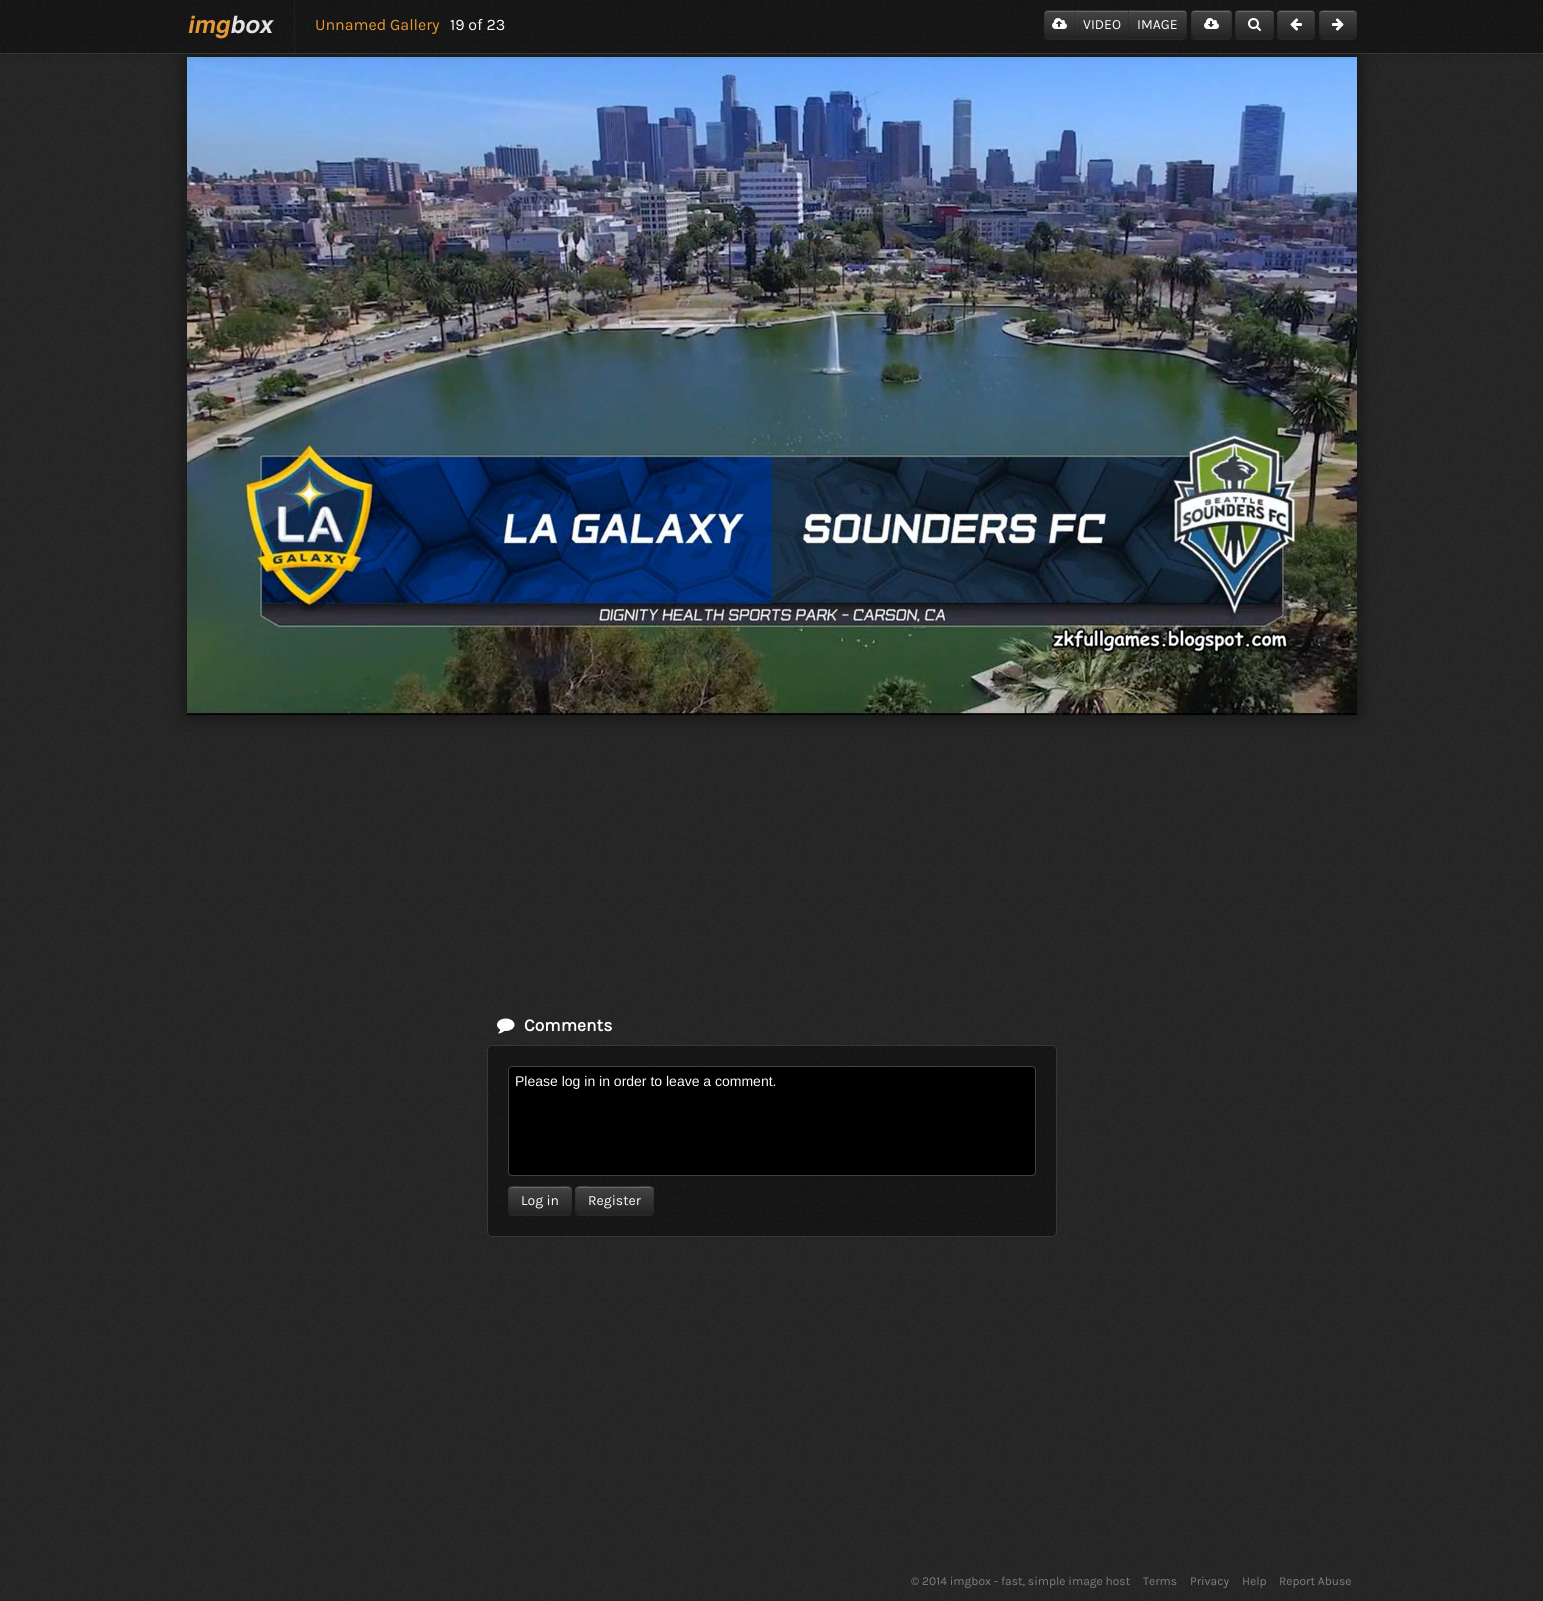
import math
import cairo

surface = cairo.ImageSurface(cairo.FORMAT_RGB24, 1543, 1601)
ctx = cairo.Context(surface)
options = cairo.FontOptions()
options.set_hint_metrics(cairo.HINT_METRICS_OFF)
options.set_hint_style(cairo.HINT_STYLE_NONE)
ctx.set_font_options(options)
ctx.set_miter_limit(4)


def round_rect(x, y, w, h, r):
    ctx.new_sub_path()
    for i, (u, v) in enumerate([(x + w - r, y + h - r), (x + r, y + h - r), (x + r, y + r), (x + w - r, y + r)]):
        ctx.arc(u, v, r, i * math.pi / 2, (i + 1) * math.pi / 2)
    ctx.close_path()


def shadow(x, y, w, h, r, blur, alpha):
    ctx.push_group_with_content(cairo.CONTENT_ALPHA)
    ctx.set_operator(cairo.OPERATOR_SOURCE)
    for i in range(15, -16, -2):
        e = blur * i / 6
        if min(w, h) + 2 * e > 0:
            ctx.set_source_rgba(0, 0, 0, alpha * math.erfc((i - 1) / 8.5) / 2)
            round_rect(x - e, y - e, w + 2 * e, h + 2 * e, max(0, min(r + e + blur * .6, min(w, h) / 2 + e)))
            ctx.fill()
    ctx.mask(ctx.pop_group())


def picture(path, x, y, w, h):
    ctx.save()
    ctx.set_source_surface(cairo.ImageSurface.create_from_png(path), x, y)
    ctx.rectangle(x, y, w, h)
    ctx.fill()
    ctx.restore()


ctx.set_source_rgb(1, 1, 1)
ctx.paint()
picture("img1.png", 0, 54, 1543, 1547)
ctx.set_source_rgb(0.067, 0.067, 0.067)
shadow(187, 57, 1170, 658, 0, 10, 1)
picture("img9.png", 187, 57, 1170, 658)
ctx.set_source_rgb(0, 0, 0)
shadow(0, 1, 1543, 54, 0, 5, 0.1)
picture("img2.png", 0, 0, 1543, 53)
ctx.set_source_rgb(0.216, 0.216, 0.216)
ctx.rectangle(0, 53, 1543, 1)
ctx.fill()
picture("img3.png", 188, 15, 86, 24)
ctx.set_source_rgb(0.125, 0.125, 0.125)
ctx.rectangle(294, 0, 1, 53)
ctx.fill()
ctx.select_font_face("Karla")
ctx.set_font_size(16)
ctx.set_source_rgb(0.89, 0.6, 0.22)
ctx.move_to(315, 30)
ctx.show_text("Unnamed Gallery")
ctx.set_source_rgb(0.992, 0.996, 1)
ctx.move_to(450, 30)
ctx.show_text("19 of 23")
ctx.set_source_rgb(0.212, 0.212, 0.212)
ctx.new_path()
ctx.move_to(1048, 10)
ctx.line_to(1075, 10)
ctx.line_to(1075, 40)
ctx.line_to(1048, 40)
ctx.curve_to(1046, 40, 1044, 38, 1044, 36)
ctx.line_to(1044, 14)
ctx.curve_to(1044, 12, 1046, 10, 1048, 10)
ctx.close_path()
ctx.fill()
ctx.save()
ctx.new_path()
ctx.move_to(1048, 10)
ctx.line_to(1075, 10)
ctx.line_to(1075, 40)
ctx.line_to(1048, 40)
ctx.curve_to(1046, 40, 1044, 38, 1044, 36)
ctx.line_to(1044, 14)
ctx.curve_to(1044, 12, 1046, 10, 1048, 10)
ctx.close_path()
ctx.clip()
gradient = cairo.LinearGradient(1060, 11, 1060, 39)
gradient.add_color_stop_rgba(0, 0.267, 0.267, 0.267, 1)
gradient.add_color_stop_rgba(1, 0.133, 0.133, 0.133, 1)
ctx.set_source(gradient)
ctx.rectangle(1044, 11, 30, 28)
ctx.fill()
ctx.restore()
ctx.set_source_rgb(0.412, 0.412, 0.412)
ctx.new_path()
ctx.move_to(1048, 12)
ctx.line_to(1074, 12)
ctx.line_to(1074, 11)
ctx.line_to(1048, 11)
ctx.curve_to(1046.5, 11, 1045, 12.5, 1045, 14)
ctx.line_to(1045, 15)
ctx.curve_to(1045, 13, 1046, 12, 1048, 12)
ctx.close_path()
ctx.fill()
ctx.set_source_rgba(0, 0, 0, 0.1)
ctx.new_path()
ctx.move_to(1048, 10)
ctx.curve_to(1047, 10, 1046, 10.5, 1045, 11)
ctx.line_to(1046, 12)
ctx.curve_to(1046.5, 11.5, 1047, 11, 1048, 11)
ctx.line_to(1074, 11)
ctx.line_to(1075, 10)
ctx.close_path()
ctx.fill()
ctx.set_source_rgba(0, 0, 0, 0.25)
ctx.new_path()
ctx.move_to(1075, 40)
ctx.line_to(1074, 39)
ctx.line_to(1048, 39)
ctx.curve_to(1047, 39, 1046.5, 38.5, 1046, 38)
ctx.line_to(1045, 39)
ctx.curve_to(1046, 39.5, 1047, 40, 1048, 40)
ctx.close_path()
ctx.fill()
ctx.set_source_rgba(0, 0, 0, 0.1)
ctx.new_path()
ctx.move_to(1044, 14)
ctx.line_to(1044, 36)
ctx.curve_to(1044, 37, 1044.5, 38, 1045, 39)
ctx.line_to(1046, 38)
ctx.curve_to(1045.5, 37.5, 1045, 37, 1045, 36)
ctx.line_to(1045, 14)
ctx.curve_to(1045, 13, 1045.5, 12.5, 1046, 12)
ctx.line_to(1045, 11)
ctx.curve_to(1044.5, 12, 1044, 13, 1044, 14)
ctx.close_path()
ctx.fill()
picture("img4.png", 1052, 18, 15, 11)
ctx.set_source_rgb(0.212, 0.212, 0.212)
ctx.rectangle(1074, 10, 54, 30)
ctx.fill()
gradient = cairo.LinearGradient(1102, 11, 1102, 39)
gradient.add_color_stop_rgba(0, 0.267, 0.267, 0.267, 1)
gradient.add_color_stop_rgba(1, 0.133, 0.133, 0.133, 1)
ctx.set_source(gradient)
ctx.rectangle(1074, 11, 54, 28)
ctx.fill()
ctx.set_source_rgb(0.412, 0.412, 0.412)
ctx.rectangle(1075, 11, 53, 1)
ctx.fill()
ctx.set_source_rgb(0.192, 0.192, 0.192)
ctx.new_path()
ctx.move_to(1074, 10)
ctx.line_to(1129, 10)
ctx.line_to(1128, 11)
ctx.line_to(1075, 11)
ctx.close_path()
ctx.fill()
ctx.set_source_rgba(0, 0, 0, 0.25)
ctx.new_path()
ctx.move_to(1129, 40)
ctx.line_to(1074, 40)
ctx.line_to(1075, 39)
ctx.line_to(1128, 39)
ctx.close_path()
ctx.fill()
ctx.set_source_rgba(0, 0, 0, 0.1)
ctx.new_path()
ctx.move_to(1074, 40)
ctx.line_to(1074, 10)
ctx.line_to(1075, 11)
ctx.line_to(1075, 39)
ctx.close_path()
ctx.fill()
ctx.set_font_size(14)
ctx.set_source_rgb(0.992, 0.996, 1)
ctx.move_to(1083, 29)
ctx.show_text("VIDEO")
ctx.set_source_rgb(0.212, 0.212, 0.212)
ctx.new_path()
ctx.move_to(1128, 10)
ctx.line_to(1183, 10)
ctx.curve_to(1185, 10, 1187, 12, 1187, 14)
ctx.line_to(1187, 36)
ctx.curve_to(1187, 38, 1185, 40, 1183, 40)
ctx.line_to(1128, 40)
ctx.close_path()
ctx.fill()
ctx.save()
ctx.new_path()
ctx.move_to(1128, 10)
ctx.line_to(1183, 10)
ctx.curve_to(1185, 10, 1187, 12, 1187, 14)
ctx.line_to(1187, 36)
ctx.curve_to(1187, 38, 1185, 40, 1183, 40)
ctx.line_to(1128, 40)
ctx.close_path()
ctx.clip()
gradient = cairo.LinearGradient(1158, 11, 1158, 39)
gradient.add_color_stop_rgba(0, 0.267, 0.267, 0.267, 1)
gradient.add_color_stop_rgba(1, 0.133, 0.133, 0.133, 1)
ctx.set_source(gradient)
ctx.rectangle(1128, 11, 59, 28)
ctx.fill()
ctx.restore()
ctx.set_source_rgb(0.412, 0.412, 0.412)
ctx.new_path()
ctx.move_to(1129, 12)
ctx.line_to(1183, 12)
ctx.curve_to(1185, 12, 1186, 13, 1186, 15)
ctx.line_to(1186, 14)
ctx.curve_to(1186, 12, 1185, 11, 1183, 11)
ctx.line_to(1129, 11)
ctx.close_path()
ctx.fill()
ctx.set_source_rgba(0, 0, 0, 0.1)
ctx.new_path()
ctx.move_to(1128, 10)
ctx.line_to(1129, 11)
ctx.curve_to(1135, 11, 1183, 10, 1185, 12)
ctx.line_to(1186, 11)
ctx.line_to(1183, 10)
ctx.close_path()
ctx.fill()
ctx.new_path()
ctx.move_to(1187, 36)
ctx.line_to(1187, 14)
ctx.curve_to(1187, 13, 1186.5, 12, 1186, 11)
ctx.line_to(1185, 12)
ctx.curve_to(1186, 12, 1186, 13, 1186, 14)
ctx.line_to(1186, 36)
ctx.curve_to(1186, 37, 1186, 38, 1185, 38)
ctx.line_to(1186, 39)
ctx.curve_to(1186.5, 38, 1187, 37, 1187, 36)
ctx.close_path()
ctx.fill()
ctx.set_source_rgba(0, 0, 0, 0.25)
ctx.new_path()
ctx.move_to(1183, 40)
ctx.line_to(1186, 39)
ctx.line_to(1185, 38)
ctx.curve_to(1183, 40, 1135, 39, 1129, 39)
ctx.line_to(1128, 40)
ctx.close_path()
ctx.fill()
ctx.set_source_rgba(0, 0, 0, 0.1)
ctx.new_path()
ctx.move_to(1128, 10)
ctx.line_to(1128, 40)
ctx.line_to(1129, 39)
ctx.line_to(1129, 11)
ctx.close_path()
ctx.fill()
ctx.set_source_rgb(0.992, 0.996, 1)
ctx.move_to(1137, 29)
ctx.show_text("IMAGE")
ctx.set_source_rgb(0.212, 0.212, 0.212)
round_rect(1191, 10, 41, 30, 4)
ctx.fill()
ctx.save()
round_rect(1191, 10, 41, 30, 4)
ctx.clip()
gradient = cairo.LinearGradient(1212, 11, 1212, 39)
gradient.add_color_stop_rgba(0, 0.267, 0.267, 0.267, 1)
gradient.add_color_stop_rgba(1, 0.133, 0.133, 0.133, 1)
ctx.set_source(gradient)
ctx.rectangle(1191, 11, 41, 28)
ctx.fill()
ctx.restore()
ctx.set_source_rgb(0.412, 0.412, 0.412)
ctx.new_path()
ctx.move_to(1195, 12)
ctx.line_to(1228, 12)
ctx.curve_to(1230, 12, 1231, 13, 1231, 15)
ctx.curve_to(1231, 9.5, 1227, 11, 1222.5, 11)
ctx.line_to(1200.5, 11)
ctx.curve_to(1196, 11, 1192, 9.5, 1192, 15)
ctx.curve_to(1192, 13, 1193, 12, 1195, 12)
ctx.close_path()
ctx.fill()
ctx.new_path()
ctx.move_to(1230.5, 38.5)
ctx.curve_to(1230, 39, 1229, 39.5, 1228, 39.5)
ctx.line_to(1195, 39.5)
ctx.curve_to(1194, 39.5, 1193, 39, 1192.5, 38.5)
ctx.set_source_rgba(0, 0, 0, 0.25)
ctx.set_line_width(1)
ctx.stroke()
ctx.new_path()
ctx.move_to(1192.5, 38.5)
ctx.curve_to(1190.5, 36.5, 1191.5, 28, 1191.5, 25)
ctx.curve_to(1191.5, 6, 1190, 10.5, 1211.5, 10.5)
ctx.curve_to(1233, 10.5, 1231.5, 6, 1231.5, 25)
ctx.curve_to(1231.5, 28, 1232.5, 36.5, 1230.5, 38.5)
ctx.set_source_rgba(0, 0, 0, 0.1)
ctx.stroke()
picture("img5.png", 1204, 18, 15, 11)
ctx.set_source_rgb(0.212, 0.212, 0.212)
round_rect(1235, 10, 39, 30, 4)
ctx.fill()
ctx.save()
round_rect(1235, 10, 39, 30, 4)
ctx.clip()
gradient = cairo.LinearGradient(1255, 11, 1255, 39)
gradient.add_color_stop_rgba(0, 0.267, 0.267, 0.267, 1)
gradient.add_color_stop_rgba(1, 0.133, 0.133, 0.133, 1)
ctx.set_source(gradient)
ctx.rectangle(1235, 11, 39, 28)
ctx.fill()
ctx.restore()
ctx.set_source_rgb(0.412, 0.412, 0.412)
ctx.new_path()
ctx.move_to(1239, 12)
ctx.line_to(1270, 12)
ctx.curve_to(1272, 12, 1273, 13, 1273, 15)
ctx.curve_to(1273, 10, 1269, 11, 1265, 11)
ctx.line_to(1244, 11)
ctx.curve_to(1240, 11, 1236, 10, 1236, 15)
ctx.curve_to(1236, 13, 1237, 12, 1239, 12)
ctx.close_path()
ctx.fill()
ctx.new_path()
ctx.move_to(1272.5, 38.5)
ctx.curve_to(1272, 39, 1271, 39.5, 1270, 39.5)
ctx.line_to(1239, 39.5)
ctx.curve_to(1238, 39.5, 1237, 39, 1236.5, 38.5)
ctx.set_source_rgba(0, 0, 0, 0.25)
ctx.stroke()
ctx.new_path()
ctx.move_to(1236.5, 38.5)
ctx.curve_to(1236, 38, 1235.5, 37, 1235.5, 36)
ctx.line_to(1235.5, 14)
ctx.curve_to(1235.5, 13, 1236, 12, 1236.5, 11.5)
ctx.curve_to(1237, 11, 1238, 10.5, 1239, 10.5)
ctx.line_to(1270, 10.5)
ctx.curve_to(1271, 10.5, 1272, 11, 1272.5, 11.5)
ctx.curve_to(1273, 12, 1273.5, 13, 1273.5, 14)
ctx.line_to(1273.5, 36)
ctx.curve_to(1273.5, 37, 1273, 38, 1272.5, 38.5)
ctx.set_source_rgba(0, 0, 0, 0.1)
ctx.stroke()
picture("img6.png", 1248, 18, 13, 13)
ctx.set_source_rgb(0.212, 0.212, 0.212)
round_rect(1277, 10, 38, 30, 4)
ctx.fill()
ctx.save()
round_rect(1277, 10, 38, 30, 4)
ctx.clip()
gradient = cairo.LinearGradient(1296, 11, 1296, 39)
gradient.add_color_stop_rgba(0, 0.267, 0.267, 0.267, 1)
gradient.add_color_stop_rgba(1, 0.133, 0.133, 0.133, 1)
ctx.set_source(gradient)
ctx.rectangle(1277, 11, 38, 28)
ctx.fill()
ctx.restore()
ctx.set_source_rgb(0.412, 0.412, 0.412)
ctx.new_path()
ctx.move_to(1281, 12)
ctx.line_to(1311, 12)
ctx.curve_to(1313, 12, 1314, 13, 1314, 15)
ctx.curve_to(1314, 10, 1310, 11, 1306, 11)
ctx.line_to(1286, 11)
ctx.curve_to(1282, 11, 1278, 10, 1278, 15)
ctx.curve_to(1278, 13, 1279, 12, 1281, 12)
ctx.close_path()
ctx.fill()
ctx.new_path()
ctx.move_to(1313.5, 38.5)
ctx.curve_to(1313, 39, 1312, 39.5, 1311, 39.5)
ctx.line_to(1281, 39.5)
ctx.curve_to(1280, 39.5, 1279, 39, 1278.5, 38.5)
ctx.set_source_rgba(0, 0, 0, 0.25)
ctx.stroke()
ctx.new_path()
ctx.move_to(1278.5, 38.5)
ctx.curve_to(1278, 38, 1277.5, 37, 1277.5, 36)
ctx.line_to(1277.5, 14)
ctx.curve_to(1277.5, 13, 1278, 12, 1278.5, 11.5)
ctx.curve_to(1279, 11, 1280, 10.5, 1281, 10.5)
ctx.line_to(1311, 10.5)
ctx.curve_to(1312, 10.5, 1313, 11, 1313.5, 11.5)
ctx.curve_to(1314, 12, 1314.5, 13, 1314.5, 14)
ctx.line_to(1314.5, 36)
ctx.curve_to(1314.5, 37, 1314, 38, 1313.5, 38.5)
ctx.set_source_rgba(0, 0, 0, 0.1)
ctx.stroke()
picture("img7.png", 1290, 18, 12, 13)
ctx.set_source_rgb(0.212, 0.212, 0.212)
round_rect(1319, 10, 38, 30, 4)
ctx.fill()
ctx.save()
round_rect(1319, 10, 38, 30, 4)
ctx.clip()
gradient = cairo.LinearGradient(1338, 11, 1338, 39)
gradient.add_color_stop_rgba(0, 0.267, 0.267, 0.267, 1)
gradient.add_color_stop_rgba(1, 0.133, 0.133, 0.133, 1)
ctx.set_source(gradient)
ctx.rectangle(1319, 11, 38, 28)
ctx.fill()
ctx.restore()
ctx.set_source_rgb(0.412, 0.412, 0.412)
ctx.new_path()
ctx.move_to(1323, 12)
ctx.line_to(1353, 12)
ctx.curve_to(1355, 12, 1356, 13, 1356, 15)
ctx.curve_to(1356, 10, 1352, 11, 1348, 11)
ctx.line_to(1328, 11)
ctx.curve_to(1324, 11, 1320, 10, 1320, 15)
ctx.curve_to(1320, 13, 1321, 12, 1323, 12)
ctx.close_path()
ctx.fill()
ctx.new_path()
ctx.move_to(1355.5, 38.5)
ctx.curve_to(1355, 39, 1354, 39.5, 1353, 39.5)
ctx.line_to(1323, 39.5)
ctx.curve_to(1322, 39.5, 1321, 39, 1320.5, 38.5)
ctx.set_source_rgba(0, 0, 0, 0.25)
ctx.stroke()
ctx.new_path()
ctx.move_to(1320.5, 38.5)
ctx.curve_to(1320, 38, 1319.5, 37, 1319.5, 36)
ctx.line_to(1319.5, 14)
ctx.curve_to(1319.5, 13, 1320, 12, 1320.5, 11.5)
ctx.curve_to(1321, 11, 1322, 10.5, 1323, 10.5)
ctx.line_to(1353, 10.5)
ctx.curve_to(1354, 10.5, 1355, 11, 1355.5, 11.5)
ctx.curve_to(1356, 12, 1356.5, 13, 1356.5, 14)
ctx.line_to(1356.5, 36)
ctx.curve_to(1356.5, 37, 1356, 38, 1355.5, 38.5)
ctx.set_source_rgba(0, 0, 0, 0.1)
ctx.stroke()
picture("img8.png", 1332, 18, 12, 13)
picture("img10.png", 497, 1018, 18, 16)
ctx.select_font_face("Karla", cairo.FONT_SLANT_NORMAL, cairo.FONT_WEIGHT_BOLD)
ctx.set_font_size(17.5)
ctx.set_source_rgb(0.992, 0.996, 1)
ctx.move_to(524, 1031)
ctx.show_text("Comments")
picture("img11.png", 487, 1045, 570, 192)
round_rect(487.5, 1045.5, 569, 191, 4.5)
ctx.set_source_rgb(0.216, 0.216, 0.216)
ctx.stroke()
ctx.set_source_rgb(0, 0, 0)
round_rect(508.5, 1066.5, 527, 109, 3.5)
ctx.fill_preserve()
ctx.set_source_rgb(0.259, 0.259, 0.259)
ctx.stroke()
ctx.select_font_face("Liberation Sans")
ctx.set_font_size(14)
ctx.set_source_rgb(0.992, 0.996, 1)
ctx.move_to(515, 1086)
ctx.show_text("Please log in in order to leave a comment.")
ctx.set_source_rgb(0.212, 0.212, 0.212)
round_rect(508, 1186, 64, 30, 4)
ctx.fill()
ctx.save()
round_rect(508, 1186, 64, 30, 4)
ctx.clip()
gradient = cairo.LinearGradient(540, 1187, 540, 1215)
gradient.add_color_stop_rgba(0, 0.267, 0.267, 0.267, 1)
gradient.add_color_stop_rgba(1, 0.133, 0.133, 0.133, 1)
ctx.set_source(gradient)
ctx.rectangle(508, 1187, 64, 28)
ctx.fill()
ctx.restore()
ctx.set_source_rgb(0.412, 0.412, 0.412)
ctx.new_path()
ctx.move_to(512, 1188)
ctx.line_to(568, 1188)
ctx.curve_to(570, 1188, 571, 1189, 571, 1191)
ctx.curve_to(571, 1185, 563, 1187, 559, 1187)
ctx.line_to(521, 1187)
ctx.curve_to(517, 1187, 509, 1185, 509, 1191)
ctx.curve_to(509, 1189, 510, 1188, 512, 1188)
ctx.close_path()
ctx.fill()
ctx.new_path()
ctx.move_to(570.5, 1214.5)
ctx.line_to(568.5, 1215.5)
ctx.line_to(511.5, 1215.5)
ctx.line_to(509.5, 1214.5)
ctx.set_source_rgba(0, 0, 0, 0.25)
ctx.stroke()
ctx.new_path()
ctx.move_to(509.5, 1214.5)
ctx.curve_to(507.5, 1212.5, 508.5, 1204, 508.5, 1201)
ctx.curve_to(508.5, 1185.5, 506, 1186.5, 521.5, 1186.5)
ctx.line_to(558.5, 1186.5)
ctx.curve_to(574, 1186.5, 571.5, 1185.5, 571.5, 1201)
ctx.curve_to(571.5, 1204, 572.5, 1212.5, 570.5, 1214.5)
ctx.set_source_rgba(0, 0, 0, 0.1)
ctx.stroke()
ctx.select_font_face("Karla")
ctx.set_source_rgb(0.992, 0.996, 1)
ctx.move_to(521, 1205)
ctx.show_text("Log in")
ctx.set_source_rgb(0.212, 0.212, 0.212)
round_rect(575, 1186, 79, 30, 4)
ctx.fill()
ctx.save()
round_rect(575, 1186, 79, 30, 4)
ctx.clip()
gradient = cairo.LinearGradient(615, 1187, 615, 1215)
gradient.add_color_stop_rgba(0, 0.267, 0.267, 0.267, 1)
gradient.add_color_stop_rgba(1, 0.133, 0.133, 0.133, 1)
ctx.set_source(gradient)
ctx.rectangle(575, 1187, 79, 28)
ctx.fill()
ctx.restore()
ctx.set_source_rgba(1, 1, 1, 0.2)
ctx.new_path()
ctx.move_to(579, 1188)
ctx.line_to(650, 1188)
ctx.curve_to(652, 1188, 653, 1189, 653, 1191)
ctx.curve_to(653, 1184, 642, 1187, 638, 1187)
ctx.line_to(591, 1187)
ctx.curve_to(587, 1187, 576, 1184, 576, 1191)
ctx.curve_to(576, 1189, 577, 1188, 579, 1188)
ctx.close_path()
ctx.fill()
ctx.new_path()
ctx.move_to(652.5, 1214.5)
ctx.curve_to(652, 1215, 651, 1215.5, 650, 1215.5)
ctx.line_to(579, 1215.5)
ctx.curve_to(578, 1215.5, 577, 1215, 576.5, 1214.5)
ctx.set_source_rgba(0, 0, 0, 0.25)
ctx.stroke()
ctx.new_path()
ctx.move_to(576.5, 1214.5)
ctx.curve_to(574.5, 1212.5, 575.5, 1204, 575.5, 1201)
ctx.curve_to(575.5, 1184, 573, 1186.5, 591, 1186.5)
ctx.line_to(638, 1186.5)
ctx.curve_to(656, 1186.5, 653.5, 1184, 653.5, 1201)
ctx.curve_to(653.5, 1204, 654.5, 1212.5, 652.5, 1214.5)
ctx.set_source_rgba(0, 0, 0, 0.1)
ctx.stroke()
ctx.set_source_rgb(0.992, 0.996, 1)
ctx.move_to(588, 1205)
ctx.show_text("Register")
ctx.set_font_size(12)
ctx.set_source_rgb(0.502, 0.502, 0.502)
ctx.move_to(911, 1585)
ctx.show_text("© 2014 imgbox - fast, simple image host")
ctx.move_to(1143, 1585)
ctx.show_text("Terms")
ctx.move_to(1190, 1585)
ctx.show_text("Privacy")
ctx.move_to(1242, 1585)
ctx.show_text("Help")
ctx.move_to(1279, 1585)
ctx.show_text("Report Abuse")
surface.write_to_png("page.png")
